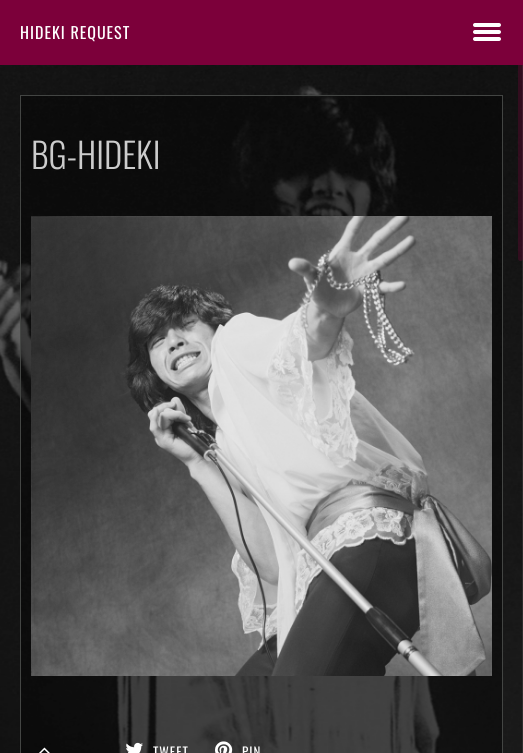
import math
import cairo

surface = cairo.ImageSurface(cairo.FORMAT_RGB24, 523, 753)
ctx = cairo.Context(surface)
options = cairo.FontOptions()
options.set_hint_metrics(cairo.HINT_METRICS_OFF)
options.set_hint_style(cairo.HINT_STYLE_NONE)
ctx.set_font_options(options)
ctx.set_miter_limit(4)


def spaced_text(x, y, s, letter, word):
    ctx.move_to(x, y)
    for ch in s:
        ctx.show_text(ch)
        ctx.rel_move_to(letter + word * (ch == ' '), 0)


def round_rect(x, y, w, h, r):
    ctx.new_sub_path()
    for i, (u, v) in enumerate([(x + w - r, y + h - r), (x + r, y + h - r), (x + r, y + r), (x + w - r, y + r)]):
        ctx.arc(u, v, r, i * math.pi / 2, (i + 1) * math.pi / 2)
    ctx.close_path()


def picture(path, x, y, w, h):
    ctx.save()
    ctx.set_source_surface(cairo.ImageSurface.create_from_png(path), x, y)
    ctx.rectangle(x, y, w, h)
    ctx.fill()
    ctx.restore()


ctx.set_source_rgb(1, 1, 1)
ctx.paint()
picture("img1.png", 0, 65, 523, 688)
ctx.set_source_rgba(0.486, 0, 0.227, 0.3)
round_rect(518, 0, 5, 261, 2.5)
ctx.fill()
ctx.set_source_rgb(0.486, 0, 0.227)
ctx.rectangle(0, 0, 523, 65)
ctx.fill()
ctx.select_font_face("Oswald")
ctx.set_font_size(16)
ctx.set_source_rgb(1, 1, 1)
spaced_text(20, 39, "HIDEKI REQUEST", 1, 0)
round_rect(473, 23, 28, 4, 2)
ctx.fill()
round_rect(473, 30, 28, 4, 2)
ctx.fill()
round_rect(473, 37, 28, 4, 2)
ctx.fill()
ctx.set_source_rgba(0, 0, 0, 0.4)
ctx.rectangle(20.5, 95.5, 482, 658)
ctx.fill_preserve()
ctx.set_source_rgb(0.263, 0.271, 0.263)
ctx.set_line_width(1)
ctx.stroke()
ctx.select_font_face("Oswald Light")
ctx.set_font_size(35)
ctx.set_source_rgb(0.8, 0.8, 0.8)
ctx.move_to(31, 169)
ctx.show_text("BG-HIDEKI")
picture("img2.png", 31, 216, 461, 460)
picture("img3.png", 39, 747, 11, 6)
picture("img4.png", 126, 742, 17, 11)
ctx.select_font_face("Oswald")
ctx.set_font_size(13)
ctx.set_source_rgb(1, 1, 1)
spaced_text(153, 757, "TWEET", 1, 0)
picture("img5.png", 215, 741, 18, 12)
spaced_text(242, 757, "PIN", 1, 0)
surface.write_to_png("page.png")
